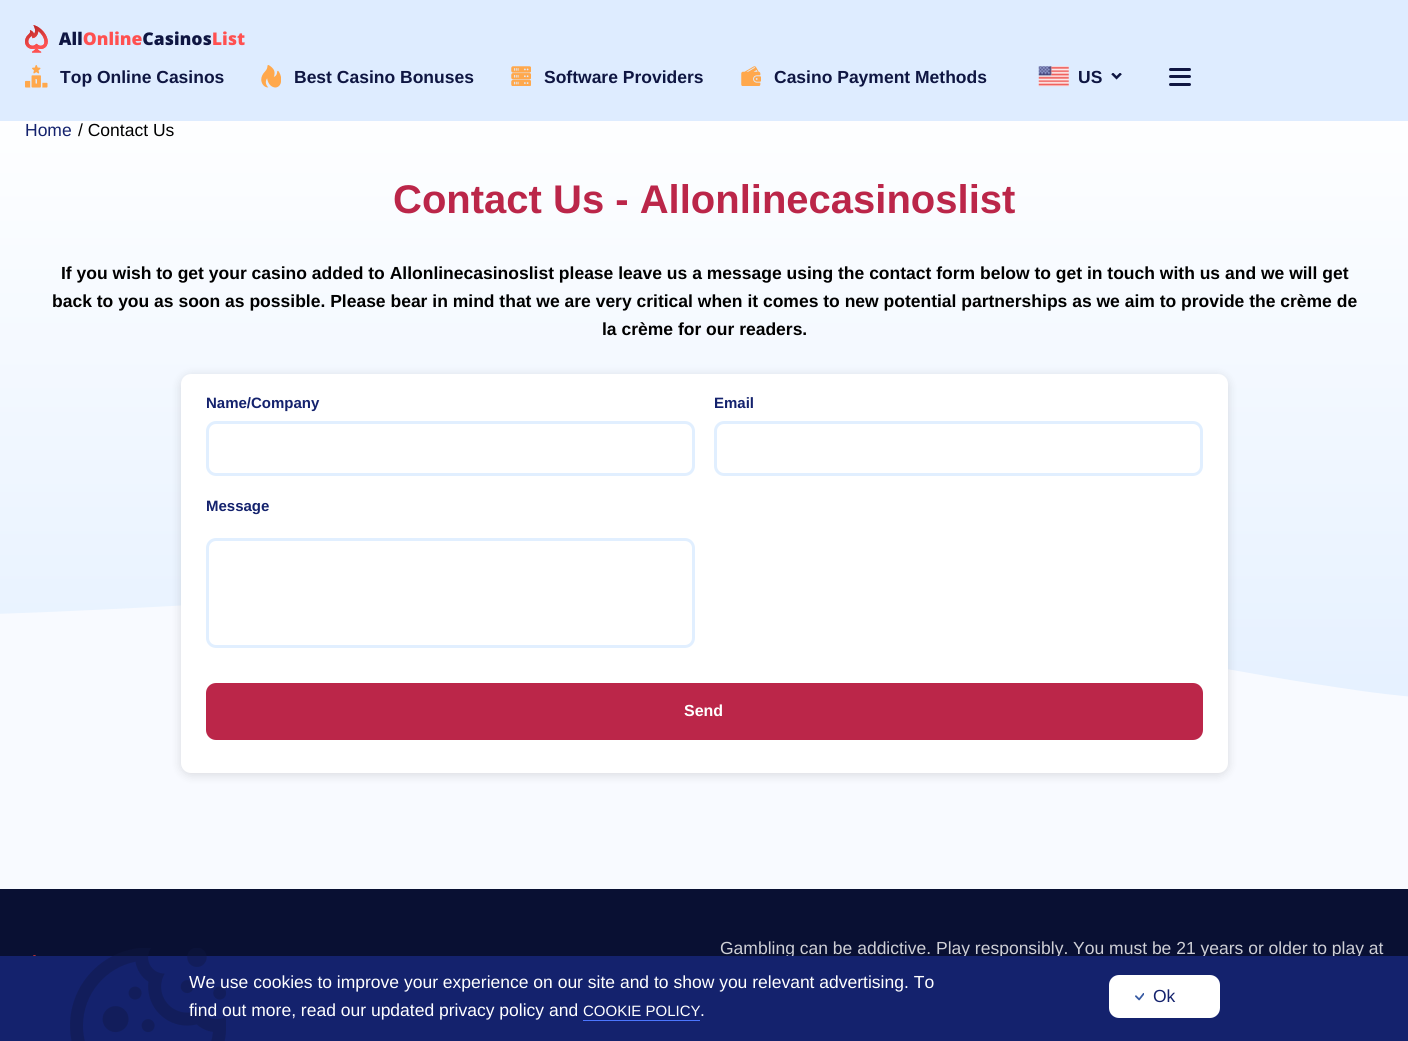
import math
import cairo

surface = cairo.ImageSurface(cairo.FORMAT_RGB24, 1408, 1041)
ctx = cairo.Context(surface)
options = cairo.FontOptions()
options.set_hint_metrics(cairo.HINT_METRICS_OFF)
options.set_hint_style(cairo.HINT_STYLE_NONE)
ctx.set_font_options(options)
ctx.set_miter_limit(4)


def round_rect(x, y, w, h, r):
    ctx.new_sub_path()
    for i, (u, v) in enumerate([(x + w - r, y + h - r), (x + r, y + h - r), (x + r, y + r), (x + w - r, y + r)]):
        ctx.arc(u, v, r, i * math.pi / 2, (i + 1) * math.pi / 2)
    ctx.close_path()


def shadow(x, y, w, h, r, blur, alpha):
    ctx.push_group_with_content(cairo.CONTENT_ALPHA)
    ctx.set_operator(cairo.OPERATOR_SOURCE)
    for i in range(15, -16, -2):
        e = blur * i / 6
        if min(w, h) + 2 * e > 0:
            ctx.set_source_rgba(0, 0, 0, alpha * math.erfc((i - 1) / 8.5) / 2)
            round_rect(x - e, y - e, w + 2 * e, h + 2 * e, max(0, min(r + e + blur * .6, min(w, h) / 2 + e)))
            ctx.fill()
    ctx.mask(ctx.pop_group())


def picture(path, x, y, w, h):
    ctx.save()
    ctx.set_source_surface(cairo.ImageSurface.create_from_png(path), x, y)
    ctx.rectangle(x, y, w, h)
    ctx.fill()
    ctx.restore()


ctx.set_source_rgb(0.039, 0.063, 0.2)
ctx.paint()
ctx.set_source_rgb(0.871, 0.922, 1)
ctx.rectangle(0, 0, 1408, 121)
ctx.fill()
picture("img1.png", 25, 25, 220, 28)
picture("img2.png", 25, 65, 23, 23)
ctx.select_font_face("Liberation Sans", cairo.FONT_SLANT_NORMAL, cairo.FONT_WEIGHT_BOLD)
ctx.set_font_size(17.5)
ctx.set_source_rgb(0.059, 0.086, 0.259)
ctx.move_to(60, 83)
ctx.show_text("Top Online Casinos")
picture("img3.png", 261, 65, 20, 23)
ctx.move_to(294, 83)
ctx.show_text("Best Casino Bonuses")
picture("img4.png", 511, 66, 20, 20)
ctx.move_to(544, 83)
ctx.show_text("Software Providers")
picture("img5.png", 741, 66, 20, 20)
ctx.move_to(774, 83)
ctx.show_text("Casino Payment Methods")
picture("img6.png", 1038, 66, 31, 21)
ctx.move_to(1078, 83)
ctx.show_text("US")
picture("img7.png", 1111, 73, 11, 7)
round_rect(1169, 68, 22, 3, 1.5)
ctx.fill()
round_rect(1169, 75, 22, 3, 1.5)
ctx.fill()
round_rect(1169, 83, 22, 3, 1.5)
ctx.fill()
gradient = cairo.LinearGradient(704, 90, 704, 899)
gradient.add_color_stop_rgba(0, 1, 1, 1, 1)
gradient.add_color_stop_rgba(1, 0.867, 0.925, 1, 1)
ctx.set_source(gradient)
ctx.rectangle(0, 121, 1408, 576)
ctx.fill()
ctx.select_font_face("Liberation Sans")
ctx.set_source_rgb(0.082, 0.133, 0.427)
ctx.move_to(25, 136)
ctx.show_text("Home")
ctx.set_source_rgb(0, 0, 0)
ctx.move_to(78, 136)
ctx.show_text("/ Contact Us")
ctx.select_font_face("Liberation Sans", cairo.FONT_SLANT_NORMAL, cairo.FONT_WEIGHT_BOLD)
ctx.set_font_size(40)
ctx.set_source_rgb(0.733, 0.149, 0.286)
ctx.move_to(393, 213)
ctx.show_text("Contact Us - Allonlinecasinoslist")
ctx.set_font_size(17.5)
ctx.set_source_rgb(0, 0, 0)
ctx.move_to(61, 279)
ctx.show_text("If you wish to get your casino added to Allonlinecasinoslist please leave us a message using the contact form below to get in touch with us and we will get")
ctx.move_to(52, 307)
ctx.show_text("back to you as soon as possible. Please bear in mind that we are very critical when it comes to new potential partnerships as we aim to provide the crème de")
ctx.move_to(602, 335)
ctx.show_text("la crème for our readers.")
ctx.save()
ctx.rectangle(0, 590, 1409, 299)
ctx.clip()
ctx.set_source_rgb(0.969, 0.98, 1)
ctx.new_path()
ctx.move_to(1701, 915)
ctx.line_to(-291, 915)
ctx.line_to(-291, 610)
ctx.curve_to(-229, 615, -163, 617, -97, 616)
ctx.curve_to(174, 613, 435, 581, 707, 593)
ctx.curve_to(974, 604, 1101, 654, 1362, 691)
ctx.curve_to(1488, 709, 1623, 702, 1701, 684)
ctx.close_path()
ctx.fill()
ctx.restore()
ctx.set_source_rgb(0, 0, 0)
shadow(181, 376, 1047, 399, 10, 5, 0.13)
ctx.set_source_rgb(1, 1, 1)
round_rect(181, 374, 1047, 399, 10)
ctx.fill()
ctx.set_font_size(15)
ctx.set_source_rgb(0.082, 0.133, 0.427)
ctx.move_to(206, 408)
ctx.show_text("Name/Company")
round_rect(207.5, 422.5, 486, 52, 8.5)
ctx.set_source_rgb(0.882, 0.937, 1)
ctx.set_line_width(3)
ctx.stroke()
ctx.set_source_rgb(0.082, 0.133, 0.427)
ctx.move_to(714, 408)
ctx.show_text("Email")
round_rect(715.5, 422.5, 486, 52, 8.5)
ctx.set_source_rgb(0.882, 0.937, 1)
ctx.stroke()
ctx.set_source_rgb(0.082, 0.133, 0.427)
ctx.move_to(206, 511)
ctx.show_text("Message")
round_rect(207.5, 539.5, 486, 107, 8.5)
ctx.set_source_rgb(0.882, 0.937, 1)
ctx.stroke()
ctx.set_source_rgb(0.733, 0.149, 0.286)
round_rect(206, 683, 997, 57, 10)
ctx.fill()
ctx.set_font_size(16)
ctx.set_source_rgb(1, 1, 1)
ctx.move_to(684, 716)
ctx.show_text("Send")
picture("img8.png", 33, 955, 3, 1)
ctx.select_font_face("Liberation Sans")
ctx.set_font_size(17.5)
ctx.set_source_rgb(0.808, 0.812, 0.839)
ctx.move_to(720, 954)
ctx.show_text("Gambling can be addictive. Play responsibly. You must be 21 years or older to play at")
ctx.set_source_rgb(0.082, 0.133, 0.427)
ctx.rectangle(0, 956, 1408, 85)
ctx.fill()
picture("img9.png", 70, 948, 156, 93)
ctx.set_source_rgb(1, 1, 1)
ctx.move_to(189, 988)
ctx.show_text("We use cookies to improve your experience on our site and to show you relevant advertising. To")
ctx.move_to(189, 1016)
ctx.show_text("find out more, read our updated privacy policy and")
ctx.set_font_size(15)
ctx.move_to(583, 1016)
ctx.show_text("COOKIE POLICY")
ctx.set_source_rgb(0.298, 0.463, 1)
ctx.rectangle(583, 1020, 117, 1)
ctx.fill()
ctx.set_font_size(17.5)
ctx.set_source_rgb(1, 1, 1)
ctx.move_to(700, 1016)
ctx.show_text(".")
round_rect(1109, 975, 111, 43, 10)
ctx.fill()
picture("img10.png", 1135, 993, 9, 8)
ctx.set_source_rgb(0.082, 0.133, 0.427)
ctx.move_to(1153, 1002)
ctx.show_text("Ok")
surface.write_to_png("page.png")
